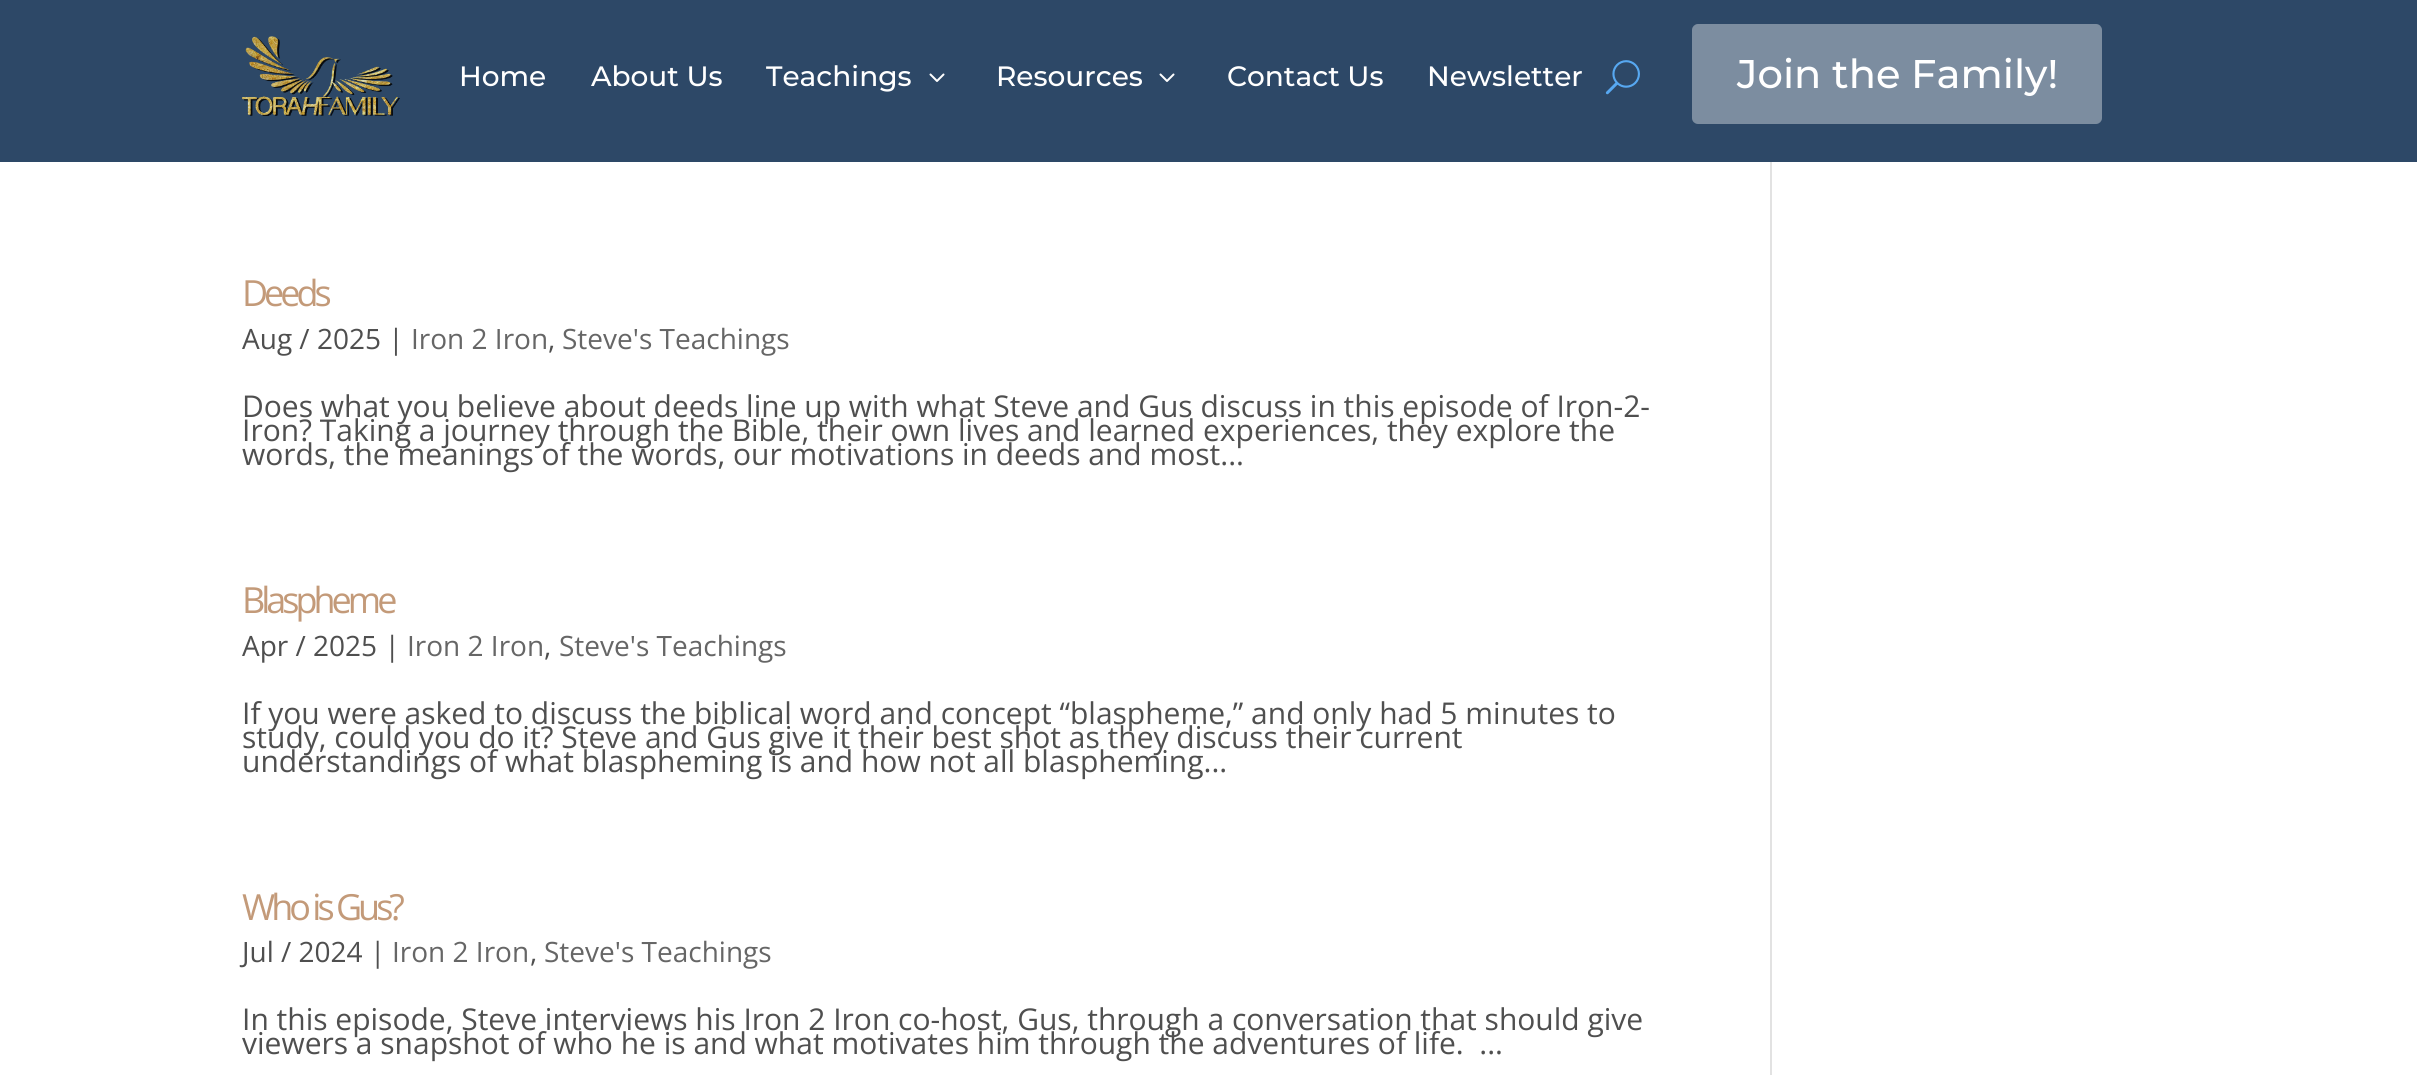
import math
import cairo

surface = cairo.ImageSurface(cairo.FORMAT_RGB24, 2417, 1075)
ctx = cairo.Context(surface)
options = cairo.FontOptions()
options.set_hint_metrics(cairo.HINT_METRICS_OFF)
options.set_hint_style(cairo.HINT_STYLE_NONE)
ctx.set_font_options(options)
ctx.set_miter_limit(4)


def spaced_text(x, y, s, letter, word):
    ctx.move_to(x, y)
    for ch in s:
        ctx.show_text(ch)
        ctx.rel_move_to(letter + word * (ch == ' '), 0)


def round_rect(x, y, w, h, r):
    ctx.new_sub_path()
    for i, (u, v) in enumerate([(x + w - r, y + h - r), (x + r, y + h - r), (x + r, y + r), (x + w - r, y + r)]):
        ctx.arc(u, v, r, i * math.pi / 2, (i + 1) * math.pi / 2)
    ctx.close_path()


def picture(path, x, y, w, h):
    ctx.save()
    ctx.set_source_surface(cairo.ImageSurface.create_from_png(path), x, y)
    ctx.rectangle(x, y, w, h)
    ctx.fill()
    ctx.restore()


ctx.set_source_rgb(1, 1, 1)
ctx.paint()
ctx.set_source_rgb(0.176, 0.282, 0.404)
ctx.rectangle(0, 0, 2417, 162)
ctx.fill()
picture("img1.png", 242, 36, 158, 80)
ctx.select_font_face("Montserrat Medium")
ctx.set_font_size(28)
ctx.set_source_rgb(1, 1, 1)
ctx.move_to(459, 86)
ctx.show_text("Home")
ctx.move_to(591, 86)
ctx.show_text("About Us")
ctx.move_to(766, 86)
ctx.show_text("Teachings")
picture("img2.png", 929, 73, 16, 9)
ctx.move_to(996, 86)
ctx.show_text("Resources")
picture("img2.png", 1159, 73, 16, 9)
ctx.move_to(1227, 86)
ctx.show_text("Contact Us")
ctx.move_to(1427, 86)
ctx.show_text("Newsletter")
picture("img3.png", 1605, 60, 35, 35)
ctx.set_source_rgb(0.486, 0.553, 0.627)
round_rect(1694, 26, 406, 96, 4)
ctx.fill_preserve()
ctx.set_line_width(4)
ctx.stroke()
ctx.set_font_size(40)
ctx.set_source_rgb(1, 1, 1)
ctx.move_to(1737, 88)
ctx.show_text("Join the Family!")
ctx.select_font_face("Open Sans")
ctx.set_font_size(36)
ctx.set_source_rgb(0.765, 0.604, 0.475)
spaced_text(242, 306, "Deeds", -4, 0)
ctx.set_font_size(28)
ctx.set_source_rgb(0.31, 0.31, 0.31)
ctx.move_to(242, 349)
ctx.show_text("Aug / 2025 |")
ctx.set_source_rgb(0.4, 0.4, 0.4)
ctx.move_to(411, 349)
ctx.show_text("Iron 2 Iron")
ctx.set_source_rgb(0.31, 0.31, 0.31)
ctx.move_to(548, 349)
ctx.show_text(",")
ctx.set_source_rgb(0.4, 0.4, 0.4)
ctx.move_to(562, 349)
ctx.show_text("Steve's Teachings")
ctx.set_font_size(30)
ctx.set_source_rgb(0.31, 0.31, 0.31)
ctx.move_to(242, 417)
ctx.show_text("Does what you believe about deeds line up with what Steve and Gus discuss in this episode of Iron-2-")
ctx.move_to(242, 441)
ctx.show_text("Iron? Taking a journey through the Bible, their own lives and learned experiences, they explore the")
ctx.move_to(242, 465)
ctx.show_text("words, the meanings of the words, our motivations in deeds and most...")
ctx.set_font_size(36)
ctx.set_source_rgb(0.765, 0.604, 0.475)
spaced_text(242, 613, "Blaspheme", -4, 0)
ctx.set_font_size(28)
ctx.set_source_rgb(0.31, 0.31, 0.31)
ctx.move_to(242, 656)
ctx.show_text("Apr / 2025 |")
ctx.set_source_rgb(0.4, 0.4, 0.4)
ctx.move_to(407, 656)
ctx.show_text("Iron 2 Iron")
ctx.set_source_rgb(0.31, 0.31, 0.31)
ctx.move_to(544, 656)
ctx.show_text(",")
ctx.set_source_rgb(0.4, 0.4, 0.4)
ctx.move_to(559, 656)
ctx.show_text("Steve's Teachings")
ctx.set_font_size(30)
ctx.set_source_rgb(0.31, 0.31, 0.31)
ctx.move_to(242, 724)
ctx.show_text("If you were asked to discuss the biblical word and concept “blaspheme,” and only had 5 minutes to")
ctx.move_to(242, 748)
ctx.show_text("study, could you do it? Steve and Gus give it their best shot as they discuss their current")
ctx.move_to(242, 772)
ctx.show_text("understandings of what blaspheming is and how not all blaspheming...")
ctx.set_font_size(36)
ctx.set_source_rgb(0.765, 0.604, 0.475)
spaced_text(242, 920, "Who is Gus?", -4, 0)
ctx.set_font_size(28)
ctx.set_source_rgb(0.31, 0.31, 0.31)
ctx.move_to(242, 962)
ctx.show_text("Jul / 2024 |")
ctx.set_source_rgb(0.4, 0.4, 0.4)
ctx.move_to(392, 962)
ctx.show_text("Iron 2 Iron")
ctx.set_source_rgb(0.31, 0.31, 0.31)
ctx.move_to(530, 962)
ctx.show_text(",")
ctx.set_source_rgb(0.4, 0.4, 0.4)
ctx.move_to(544, 962)
ctx.show_text("Steve's Teachings")
ctx.set_font_size(30)
ctx.set_source_rgb(0.31, 0.31, 0.31)
ctx.move_to(242, 1030)
ctx.show_text("In this episode, Steve interviews his Iron 2 Iron co-host, Gus, through a conversation that should give")
ctx.move_to(242, 1054)
ctx.show_text("viewers a snapshot of who he is and what motivates him through the adventures of life.  ...")
ctx.set_source_rgb(0.886, 0.886, 0.886)
ctx.rectangle(1770, 162, 2, 913)
ctx.fill()
surface.write_to_png("page.png")
